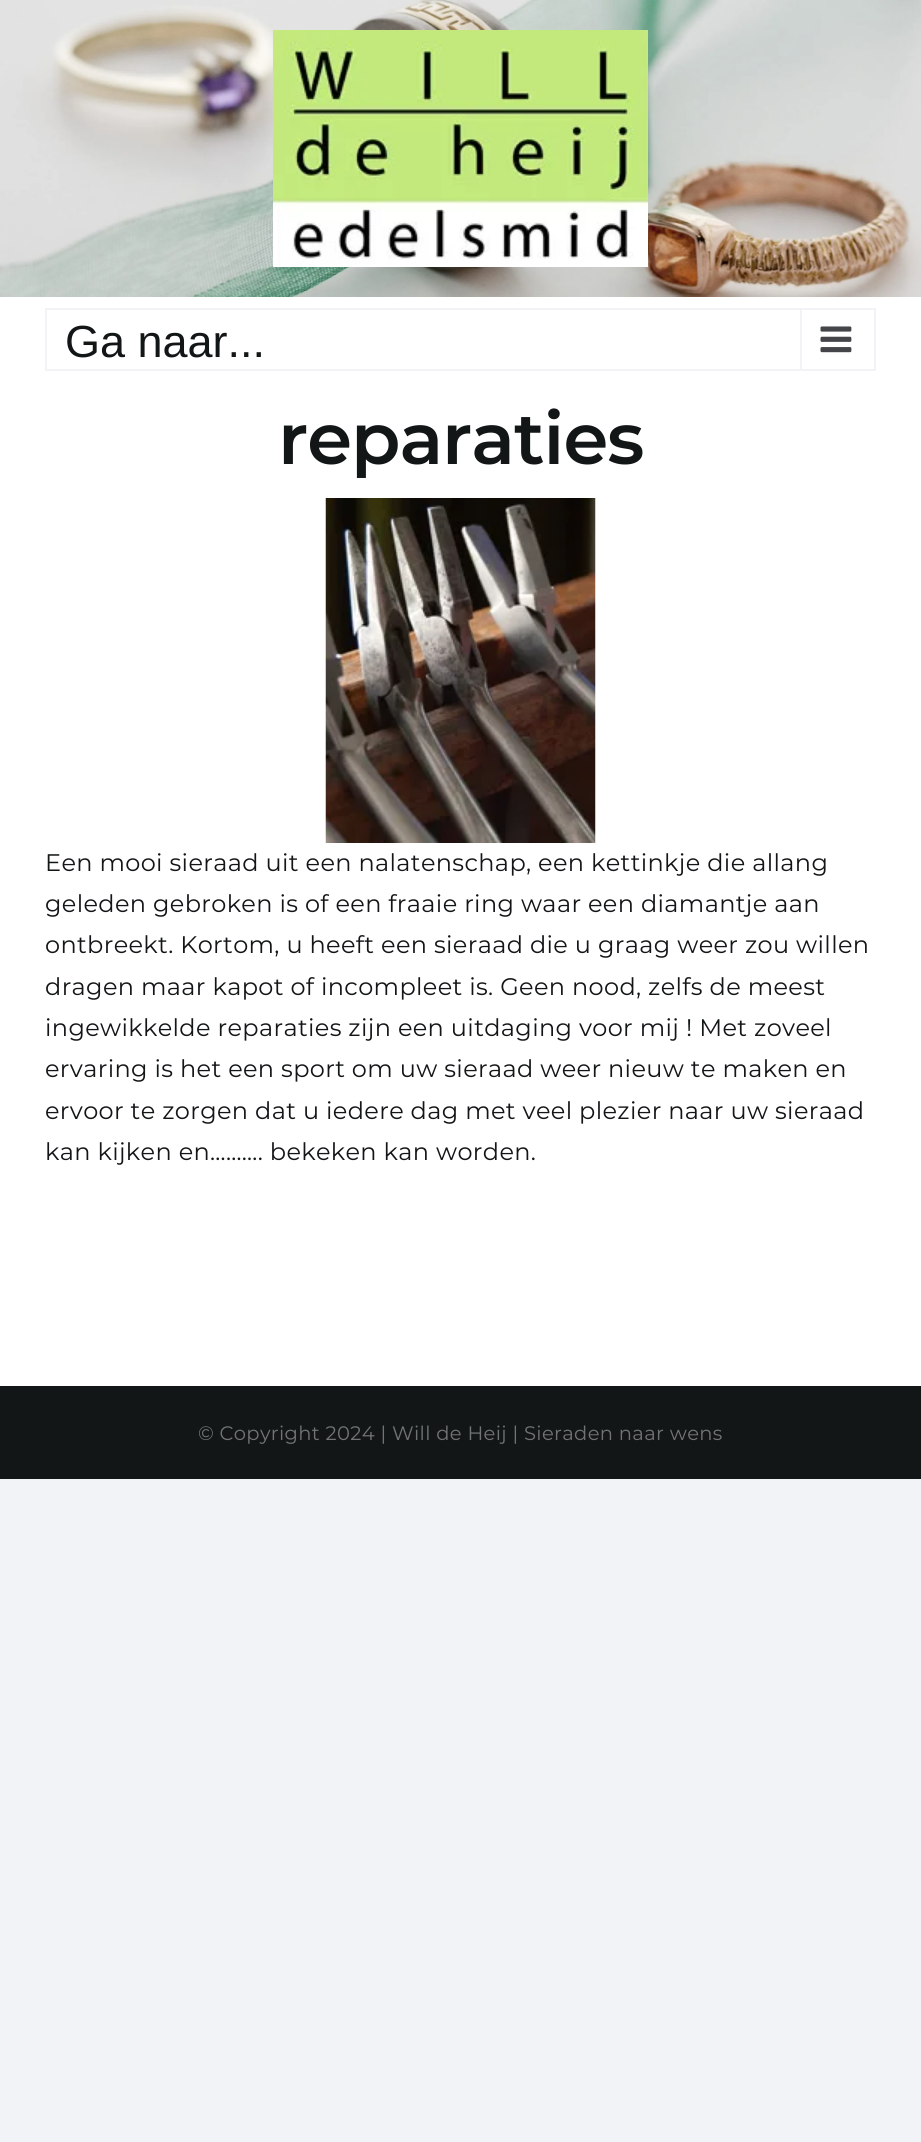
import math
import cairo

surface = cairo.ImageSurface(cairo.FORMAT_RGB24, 921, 2142)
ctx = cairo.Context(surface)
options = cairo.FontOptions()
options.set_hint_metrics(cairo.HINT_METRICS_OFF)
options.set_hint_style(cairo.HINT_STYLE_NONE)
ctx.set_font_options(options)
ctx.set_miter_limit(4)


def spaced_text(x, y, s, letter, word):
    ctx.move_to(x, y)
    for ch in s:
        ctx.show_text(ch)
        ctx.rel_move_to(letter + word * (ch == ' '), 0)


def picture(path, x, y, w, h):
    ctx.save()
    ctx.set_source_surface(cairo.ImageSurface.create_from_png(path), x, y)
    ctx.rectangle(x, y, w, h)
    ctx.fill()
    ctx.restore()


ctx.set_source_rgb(0.949, 0.953, 0.961)
ctx.paint()
ctx.set_source_rgb(1, 1, 1)
ctx.rectangle(0, 297, 921, 1089)
ctx.fill()
picture("img1.png", 0, 0, 921, 297)
picture("img2.png", 273, 30, 375, 237)
ctx.rectangle(46, 309, 829, 61)
ctx.set_source_rgb(0.949, 0.953, 0.961)
ctx.stroke()
ctx.select_font_face("Liberation Sans")
ctx.set_font_size(45)
ctx.set_source_rgb(0.078, 0.086, 0.09)
ctx.move_to(65, 357)
ctx.show_text("Ga naar...")
ctx.set_source_rgb(0.949, 0.953, 0.961)
ctx.rectangle(800, 309, 2, 60)
ctx.fill()
picture("img3.png", 820, 326, 32, 27)
ctx.select_font_face("Montserrat SemiBold")
ctx.set_font_size(72)
ctx.set_source_rgb(0.078, 0.086, 0.09)
spaced_text(278, 464, "reparaties", -1, 0)
picture("img4.png", 325, 498, 271, 345)
ctx.select_font_face("Montserrat")
ctx.set_font_size(24)
spaced_text(45, 871, "Een mooi sieraad uit een nalatenschap, een kettinkje die allang", 0.35, 0)
spaced_text(45, 912, "geleden gebroken is of een fraaie ring waar een diamantje aan", 0.35, 0)
spaced_text(45, 953, "ontbreekt. Kortom, u heeft een sieraad die u graag weer zou willen", 0.35, 0)
spaced_text(45, 995, "dragen maar kapot of incompleet is. Geen nood, zelfs de meest", 0.35, 0)
spaced_text(45, 1036, "ingewikkelde reparaties zijn een uitdaging voor mij ! Met zoveel", 0.35, 0)
spaced_text(45, 1077, "ervaring is het een sport om uw sieraad weer nieuw te maken en", 0.35, 0)
spaced_text(45, 1119, "ervoor te zorgen dat u iedere dag met veel plezier naar uw sieraad", 0.35, 0)
spaced_text(45, 1160, "kan kijken en………. bekeken kan worden.", 0.35, 0)
ctx.rectangle(0, 1386, 921, 93)
ctx.fill()
ctx.set_font_size(19.5)
ctx.set_source_rgb(0.447, 0.451, 0.455)
spaced_text(198, 1440, "© Copyright 2024 | Will de Heij | Sieraden naar wens", 0.35, 0)
surface.write_to_png("page.png")
